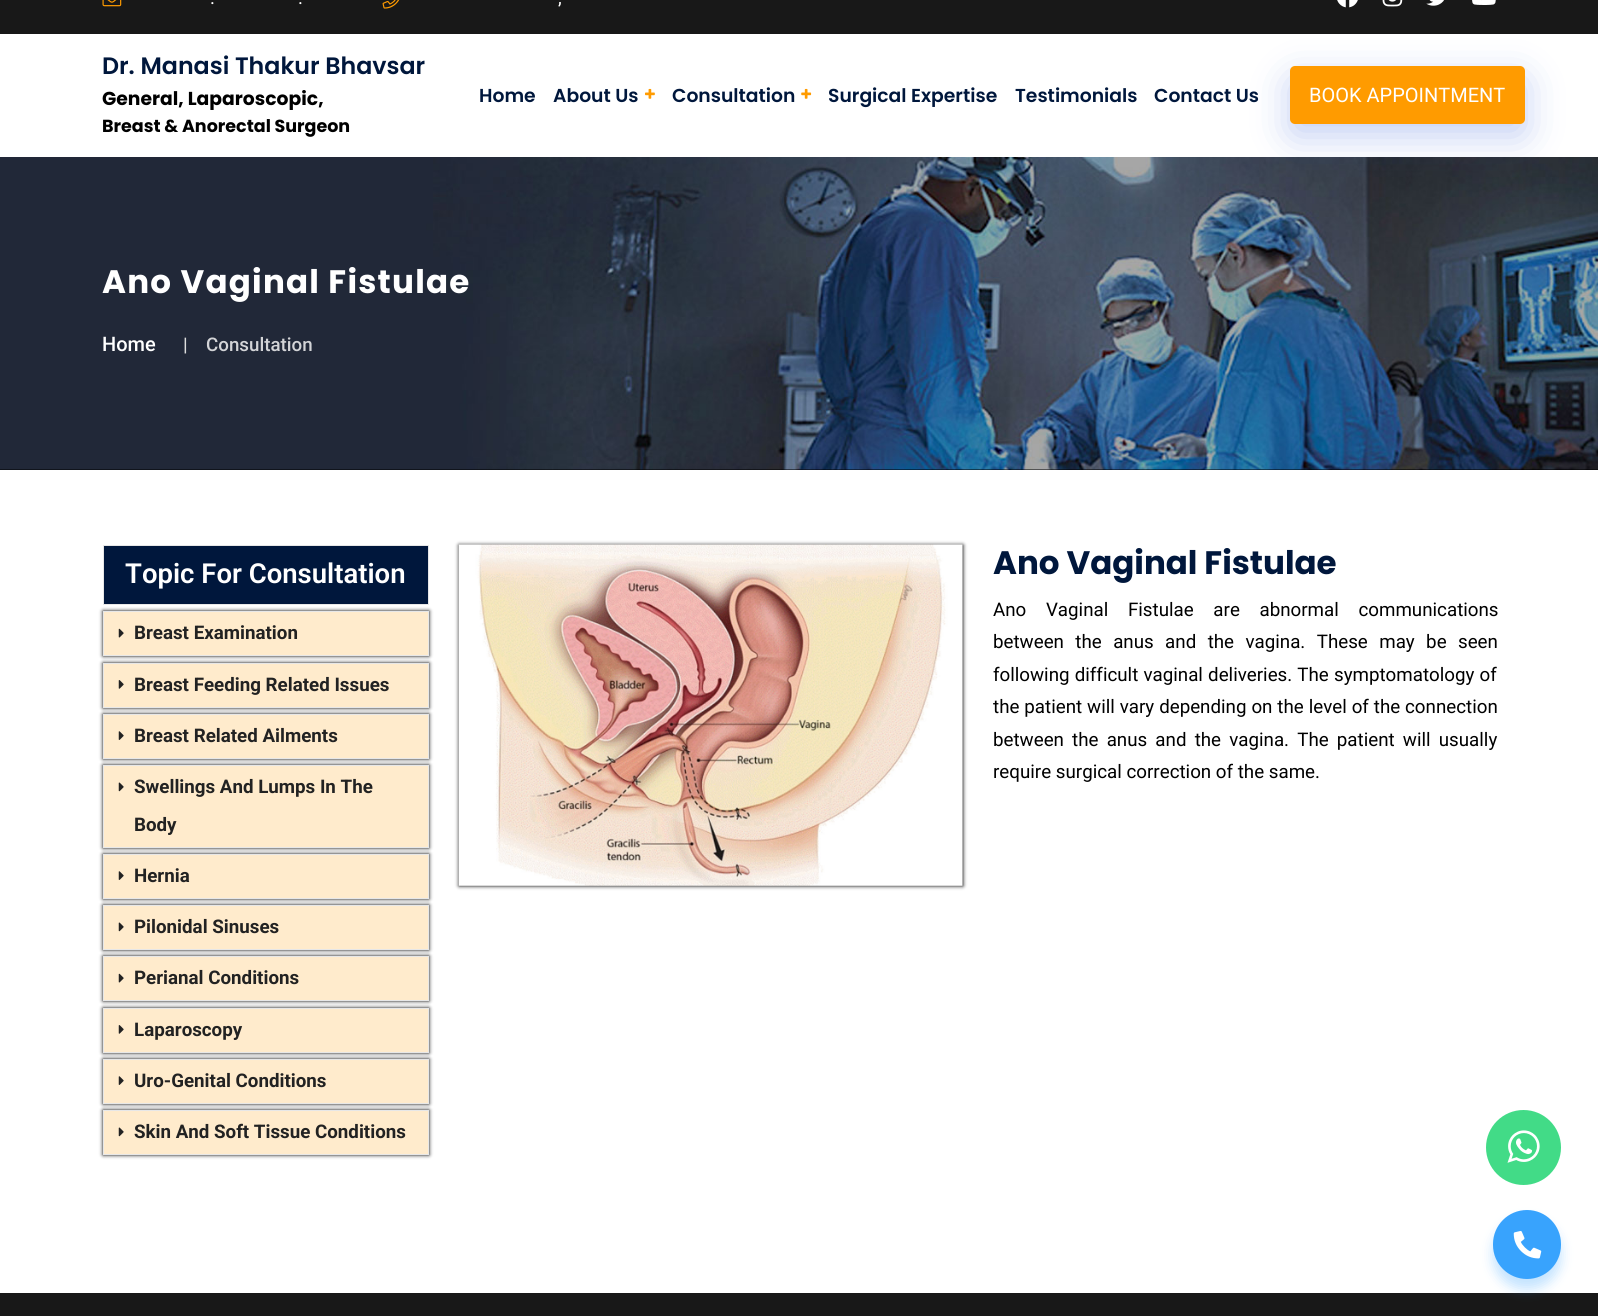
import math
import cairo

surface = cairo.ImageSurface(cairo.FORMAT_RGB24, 1598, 1316)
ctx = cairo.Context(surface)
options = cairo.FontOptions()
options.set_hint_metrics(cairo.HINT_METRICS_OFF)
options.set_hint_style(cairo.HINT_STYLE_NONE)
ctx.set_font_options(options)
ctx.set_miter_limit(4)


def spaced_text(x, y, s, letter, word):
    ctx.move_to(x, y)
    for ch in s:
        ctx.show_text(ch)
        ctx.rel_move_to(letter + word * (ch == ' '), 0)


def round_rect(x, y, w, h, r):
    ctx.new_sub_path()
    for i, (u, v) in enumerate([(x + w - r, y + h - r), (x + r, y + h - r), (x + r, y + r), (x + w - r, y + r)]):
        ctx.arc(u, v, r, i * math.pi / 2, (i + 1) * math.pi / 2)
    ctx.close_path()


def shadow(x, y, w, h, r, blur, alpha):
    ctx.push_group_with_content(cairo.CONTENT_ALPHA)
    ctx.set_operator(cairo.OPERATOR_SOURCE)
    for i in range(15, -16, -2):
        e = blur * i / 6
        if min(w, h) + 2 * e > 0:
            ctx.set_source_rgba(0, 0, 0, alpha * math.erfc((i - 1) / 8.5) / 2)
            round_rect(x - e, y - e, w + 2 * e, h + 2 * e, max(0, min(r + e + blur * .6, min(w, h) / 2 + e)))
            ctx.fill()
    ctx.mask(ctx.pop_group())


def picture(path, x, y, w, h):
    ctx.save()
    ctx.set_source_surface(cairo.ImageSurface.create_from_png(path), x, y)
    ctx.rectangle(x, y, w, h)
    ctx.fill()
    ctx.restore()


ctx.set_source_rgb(1, 1, 1)
ctx.paint()
ctx.set_source_rgb(0.094, 0.094, 0.094)
ctx.rectangle(0, 0, 1598, 34)
ctx.fill()
picture("img1.png", 102, 0, 20, 7)
ctx.select_font_face("Roboto")
ctx.set_font_size(18.75)
ctx.set_source_rgb(1, 1, 1)
ctx.move_to(210, 4)
ctx.show_text(".")
ctx.move_to(298, 4)
ctx.show_text(".")
picture("img2.png", 382, 0, 18, 9)
ctx.move_to(558, 4)
ctx.show_text(",")
picture("img3.png", 1337, 0, 21, 8)
picture("img4.png", 1382, 0, 21, 7)
picture("img5.png", 1426, 0, 18, 6)
picture("img6.png", 1472, 0, 24, 5)
ctx.select_font_face("Poppins SemiBold")
ctx.set_font_size(23.75)
ctx.set_source_rgb(0, 0.09, 0.235)
ctx.move_to(102, 74)
ctx.show_text("Dr. Manasi Thakur Bhavsar")
ctx.select_font_face("Poppins", cairo.FONT_SLANT_NORMAL, cairo.FONT_WEIGHT_BOLD)
ctx.set_font_size(18.75)
ctx.set_source_rgb(0, 0, 0)
ctx.move_to(102, 105)
ctx.show_text("General, Laparoscopic,")
ctx.set_font_size(17.5)
ctx.move_to(102, 132)
ctx.show_text("Breast & Anorectal Surgeon")
ctx.select_font_face("Poppins SemiBold")
ctx.set_font_size(18.75)
ctx.set_source_rgb(0, 0.09, 0.235)
ctx.move_to(479, 102)
ctx.show_text("Home")
ctx.move_to(553, 102)
ctx.show_text("About Us")
picture("img7.png", 645, 88, 10, 11)
ctx.move_to(672, 102)
ctx.show_text("Consultation")
picture("img8.png", 801, 88, 11, 11)
ctx.move_to(828, 102)
ctx.show_text("Surgical Expertise")
ctx.move_to(1015, 102)
ctx.show_text("Testimonials")
ctx.move_to(1154, 102)
ctx.show_text("Contact Us")
ctx.set_source_rgb(0, 0, 0)
ctx.rectangle(0, 469, 1598, 1)
ctx.fill()
picture("img9.png", 0, 157, 1598, 313)
ctx.set_source_rgb(0.212, 0.376, 0.851)
shadow(1290, 79, 235, 57, 5, 19, 0.3)
ctx.set_source_rgb(1, 0.608, 0)
round_rect(1290, 66, 235, 58, 5)
ctx.fill()
ctx.select_font_face("Roboto")
ctx.set_font_size(20)
ctx.set_source_rgb(1, 1, 1)
ctx.move_to(1309, 102)
ctx.show_text("BOOK APPOINTMENT")
ctx.select_font_face("Poppins", cairo.FONT_SLANT_NORMAL, cairo.FONT_WEIGHT_BOLD)
ctx.set_font_size(32.5)
spaced_text(102, 293, "Ano Vaginal Fistulae", 1.25, 0)
ctx.select_font_face("Roboto Medium")
ctx.set_font_size(20)
ctx.move_to(102, 351)
ctx.show_text("Home")
ctx.set_font_size(18.75)
ctx.set_source_rgb(0.867, 0.867, 0.867)
ctx.move_to(183, 351)
ctx.show_text("|")
ctx.set_source_rgb(0.827, 0.831, 0.843)
ctx.move_to(206, 351)
ctx.show_text("Consultation")
ctx.set_source_rgb(0, 0.09, 0.235)
ctx.rectangle(103.5, 545.5, 325, 59)
ctx.fill_preserve()
ctx.set_source_rgb(0.906, 0.906, 0.906)
ctx.set_line_width(1)
ctx.stroke()
ctx.select_font_face("Roboto SemiBold")
ctx.set_font_size(27.5)
ctx.set_source_rgb(1, 1, 1)
ctx.move_to(125, 583)
ctx.show_text("Topic For Consultation")
ctx.save()
ctx.set_fill_rule(cairo.FILL_RULE_EVEN_ODD)
ctx.new_path()
ctx.move_to(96, 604)
ctx.line_to(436, 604)
ctx.line_to(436, 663)
ctx.line_to(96, 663)
ctx.close_path()
ctx.move_to(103, 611)
ctx.line_to(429, 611)
ctx.line_to(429, 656)
ctx.line_to(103, 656)
ctx.close_path()
ctx.clip()
ctx.set_source_rgb(0, 0, 0)
shadow(103, 611, 326, 45, 0, 2, 1)
ctx.restore()
ctx.set_source_rgba(1, 0.608, 0, 0.2)
ctx.rectangle(103.5, 611.5, 325, 44)
ctx.fill_preserve()
ctx.set_source_rgb(0.906, 0.906, 0.906)
ctx.stroke()
picture("img10.png", 118, 628, 6, 10)
ctx.select_font_face("Roboto", cairo.FONT_SLANT_NORMAL, cairo.FONT_WEIGHT_BOLD)
ctx.set_font_size(18.75)
ctx.set_source_rgb(0.133, 0.133, 0.133)
ctx.move_to(134, 639)
ctx.show_text("Breast Examination")
ctx.save()
ctx.set_fill_rule(cairo.FILL_RULE_EVEN_ODD)
ctx.new_path()
ctx.move_to(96, 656)
ctx.line_to(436, 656)
ctx.line_to(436, 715)
ctx.line_to(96, 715)
ctx.close_path()
ctx.move_to(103, 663)
ctx.line_to(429, 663)
ctx.line_to(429, 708)
ctx.line_to(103, 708)
ctx.close_path()
ctx.clip()
ctx.set_source_rgb(0, 0, 0)
shadow(103, 663, 326, 45, 0, 2, 1)
ctx.restore()
ctx.set_source_rgba(1, 0.608, 0, 0.2)
ctx.rectangle(103.5, 663.5, 325, 44)
ctx.fill_preserve()
ctx.set_source_rgb(0.906, 0.906, 0.906)
ctx.stroke()
picture("img11.png", 118, 680, 6, 9)
ctx.set_source_rgb(0.133, 0.133, 0.133)
ctx.move_to(134, 691)
ctx.show_text("Breast Feeding Related Issues")
ctx.save()
ctx.set_fill_rule(cairo.FILL_RULE_EVEN_ODD)
ctx.new_path()
ctx.move_to(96, 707)
ctx.line_to(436, 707)
ctx.line_to(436, 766)
ctx.line_to(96, 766)
ctx.close_path()
ctx.move_to(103, 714)
ctx.line_to(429, 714)
ctx.line_to(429, 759)
ctx.line_to(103, 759)
ctx.close_path()
ctx.clip()
ctx.set_source_rgb(0, 0, 0)
shadow(103, 714, 326, 45, 0, 2, 1)
ctx.restore()
ctx.set_source_rgba(1, 0.608, 0, 0.2)
ctx.rectangle(103.5, 714.5, 325, 44)
ctx.fill_preserve()
ctx.set_source_rgb(0.906, 0.906, 0.906)
ctx.stroke()
picture("img12.png", 118, 731, 6, 9)
ctx.set_source_rgb(0.133, 0.133, 0.133)
ctx.move_to(134, 742)
ctx.show_text("Breast Related Ailments")
ctx.save()
ctx.set_fill_rule(cairo.FILL_RULE_EVEN_ODD)
ctx.new_path()
ctx.move_to(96, 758)
ctx.line_to(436, 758)
ctx.line_to(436, 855)
ctx.line_to(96, 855)
ctx.close_path()
ctx.move_to(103, 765)
ctx.line_to(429, 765)
ctx.line_to(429, 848)
ctx.line_to(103, 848)
ctx.close_path()
ctx.clip()
ctx.set_source_rgb(0, 0, 0)
shadow(103, 765, 326, 83, 0, 2, 1)
ctx.restore()
ctx.set_source_rgba(1, 0.608, 0, 0.2)
ctx.rectangle(103.5, 765.5, 325, 82)
ctx.fill_preserve()
ctx.set_source_rgb(0.906, 0.906, 0.906)
ctx.stroke()
picture("img13.png", 118, 782, 6, 10)
ctx.set_source_rgb(0.133, 0.133, 0.133)
ctx.move_to(134, 793)
ctx.show_text("Swellings And Lumps In The")
ctx.move_to(134, 831)
ctx.show_text("Body")
ctx.save()
ctx.set_fill_rule(cairo.FILL_RULE_EVEN_ODD)
ctx.new_path()
ctx.move_to(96, 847)
ctx.line_to(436, 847)
ctx.line_to(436, 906)
ctx.line_to(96, 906)
ctx.close_path()
ctx.move_to(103, 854)
ctx.line_to(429, 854)
ctx.line_to(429, 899)
ctx.line_to(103, 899)
ctx.close_path()
ctx.clip()
ctx.set_source_rgb(0, 0, 0)
shadow(103, 854, 326, 45, 0, 2, 1)
ctx.restore()
ctx.set_source_rgba(1, 0.608, 0, 0.2)
ctx.rectangle(103.5, 854.5, 325, 44)
ctx.fill_preserve()
ctx.set_source_rgb(0.906, 0.906, 0.906)
ctx.stroke()
picture("img12.png", 118, 871, 6, 9)
ctx.set_source_rgb(0.133, 0.133, 0.133)
ctx.move_to(134, 882)
ctx.show_text("Hernia")
ctx.save()
ctx.set_fill_rule(cairo.FILL_RULE_EVEN_ODD)
ctx.new_path()
ctx.move_to(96, 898)
ctx.line_to(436, 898)
ctx.line_to(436, 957)
ctx.line_to(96, 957)
ctx.close_path()
ctx.move_to(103, 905)
ctx.line_to(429, 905)
ctx.line_to(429, 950)
ctx.line_to(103, 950)
ctx.close_path()
ctx.clip()
ctx.set_source_rgb(0, 0, 0)
shadow(103, 905, 326, 45, 0, 2, 1)
ctx.restore()
ctx.set_source_rgba(1, 0.608, 0, 0.2)
ctx.rectangle(103.5, 905.5, 325, 44)
ctx.fill_preserve()
ctx.set_source_rgb(0.906, 0.906, 0.906)
ctx.stroke()
picture("img13.png", 118, 922, 6, 10)
ctx.set_source_rgb(0.133, 0.133, 0.133)
ctx.move_to(134, 933)
ctx.show_text("Pilonidal Sinuses")
ctx.save()
ctx.set_fill_rule(cairo.FILL_RULE_EVEN_ODD)
ctx.new_path()
ctx.move_to(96, 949)
ctx.line_to(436, 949)
ctx.line_to(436, 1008)
ctx.line_to(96, 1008)
ctx.close_path()
ctx.move_to(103, 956)
ctx.line_to(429, 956)
ctx.line_to(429, 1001)
ctx.line_to(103, 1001)
ctx.close_path()
ctx.clip()
ctx.set_source_rgb(0, 0, 0)
shadow(103, 956, 326, 45, 0, 2, 1)
ctx.restore()
ctx.set_source_rgba(1, 0.608, 0, 0.2)
ctx.rectangle(103.5, 956.5, 325, 44)
ctx.fill_preserve()
ctx.set_source_rgb(0.906, 0.906, 0.906)
ctx.stroke()
picture("img10.png", 118, 973, 6, 10)
ctx.set_source_rgb(0.133, 0.133, 0.133)
ctx.move_to(134, 984)
ctx.show_text("Perianal Conditions")
ctx.save()
ctx.set_fill_rule(cairo.FILL_RULE_EVEN_ODD)
ctx.new_path()
ctx.move_to(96, 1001)
ctx.line_to(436, 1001)
ctx.line_to(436, 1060)
ctx.line_to(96, 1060)
ctx.close_path()
ctx.move_to(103, 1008)
ctx.line_to(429, 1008)
ctx.line_to(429, 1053)
ctx.line_to(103, 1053)
ctx.close_path()
ctx.clip()
ctx.set_source_rgb(0, 0, 0)
shadow(103, 1008, 326, 45, 0, 2, 1)
ctx.restore()
ctx.set_source_rgba(1, 0.608, 0, 0.2)
ctx.rectangle(103.5, 1008.5, 325, 44)
ctx.fill_preserve()
ctx.set_source_rgb(0.906, 0.906, 0.906)
ctx.stroke()
picture("img11.png", 118, 1025, 6, 9)
ctx.set_source_rgb(0.133, 0.133, 0.133)
ctx.move_to(134, 1036)
ctx.show_text("Laparoscopy")
ctx.save()
ctx.set_fill_rule(cairo.FILL_RULE_EVEN_ODD)
ctx.new_path()
ctx.move_to(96, 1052)
ctx.line_to(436, 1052)
ctx.line_to(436, 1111)
ctx.line_to(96, 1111)
ctx.close_path()
ctx.move_to(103, 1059)
ctx.line_to(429, 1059)
ctx.line_to(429, 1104)
ctx.line_to(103, 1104)
ctx.close_path()
ctx.clip()
ctx.set_source_rgb(0, 0, 0)
shadow(103, 1059, 326, 45, 0, 2, 1)
ctx.restore()
ctx.set_source_rgba(1, 0.608, 0, 0.2)
ctx.rectangle(103.5, 1059.5, 325, 44)
ctx.fill_preserve()
ctx.set_source_rgb(0.906, 0.906, 0.906)
ctx.stroke()
picture("img12.png", 118, 1076, 6, 9)
ctx.set_source_rgb(0.133, 0.133, 0.133)
ctx.move_to(134, 1087)
ctx.show_text("Uro-Genital Conditions")
ctx.save()
ctx.set_fill_rule(cairo.FILL_RULE_EVEN_ODD)
ctx.new_path()
ctx.move_to(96, 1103)
ctx.line_to(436, 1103)
ctx.line_to(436, 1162)
ctx.line_to(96, 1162)
ctx.close_path()
ctx.move_to(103, 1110)
ctx.line_to(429, 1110)
ctx.line_to(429, 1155)
ctx.line_to(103, 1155)
ctx.close_path()
ctx.clip()
ctx.set_source_rgb(0, 0, 0)
shadow(103, 1110, 326, 45, 0, 2, 1)
ctx.restore()
ctx.set_source_rgba(1, 0.608, 0, 0.2)
ctx.rectangle(103.5, 1110.5, 325, 44)
ctx.fill_preserve()
ctx.set_source_rgb(0.906, 0.906, 0.906)
ctx.stroke()
picture("img13.png", 118, 1127, 6, 10)
ctx.set_source_rgb(0.133, 0.133, 0.133)
ctx.move_to(134, 1138)
ctx.show_text("Skin And Soft Tissue Conditions")
ctx.set_source_rgb(0, 0, 0)
shadow(459, 545, 504, 341, 0, 2, 1)
picture("img14.png", 458, 544, 505, 342)
ctx.select_font_face("Poppins", cairo.FONT_SLANT_NORMAL, cairo.FONT_WEIGHT_BOLD)
ctx.set_font_size(32.5)
ctx.set_source_rgb(0, 0.09, 0.235)
ctx.move_to(993, 574)
ctx.show_text("Ano Vaginal Fistulae")
ctx.select_font_face("Roboto")
ctx.set_font_size(18.75)
ctx.set_source_rgb(0, 0, 0)
spaced_text(993, 616, "Ano Vaginal Fistulae are abnormal communications", 0, 15)
spaced_text(993, 648, "between the anus and the vagina. These may be seen", 0, 6.75)
spaced_text(993, 681, "following difficult vaginal deliveries. The symptomatology of", 0, 0.5)
spaced_text(993, 713, "the patient will vary depending on the level of the connection", 0, 0.25)
spaced_text(993, 746, "between the anus and the vagina. The patient will usually", 0, 3.5)
ctx.move_to(993, 778)
ctx.show_text("require surgical correction of the same.")
ctx.set_source_rgb(0.259, 0.859, 0.529)
ctx.new_path()
ctx.arc(1523.5, 1147.5, 37.5, 0, 2 * math.pi)
ctx.fill()
picture("img15.png", 1507, 1130, 33, 33)
ctx.set_source_rgb(0.094, 0.094, 0.094)
ctx.rectangle(0, 1293, 1598, 23)
ctx.fill()
ctx.set_source_rgb(0.22, 0.639, 0.992)
shadow(1493, 1220, 68, 69, 34, 6, 0.3)
ctx.set_source_rgb(0.22, 0.639, 0.992)
round_rect(1494.5, 1211.5, 65, 66, 32.5)
ctx.fill_preserve()
ctx.set_line_width(3)
ctx.stroke()
picture("img16.png", 1513, 1231, 29, 28)
surface.write_to_png("page.png")
